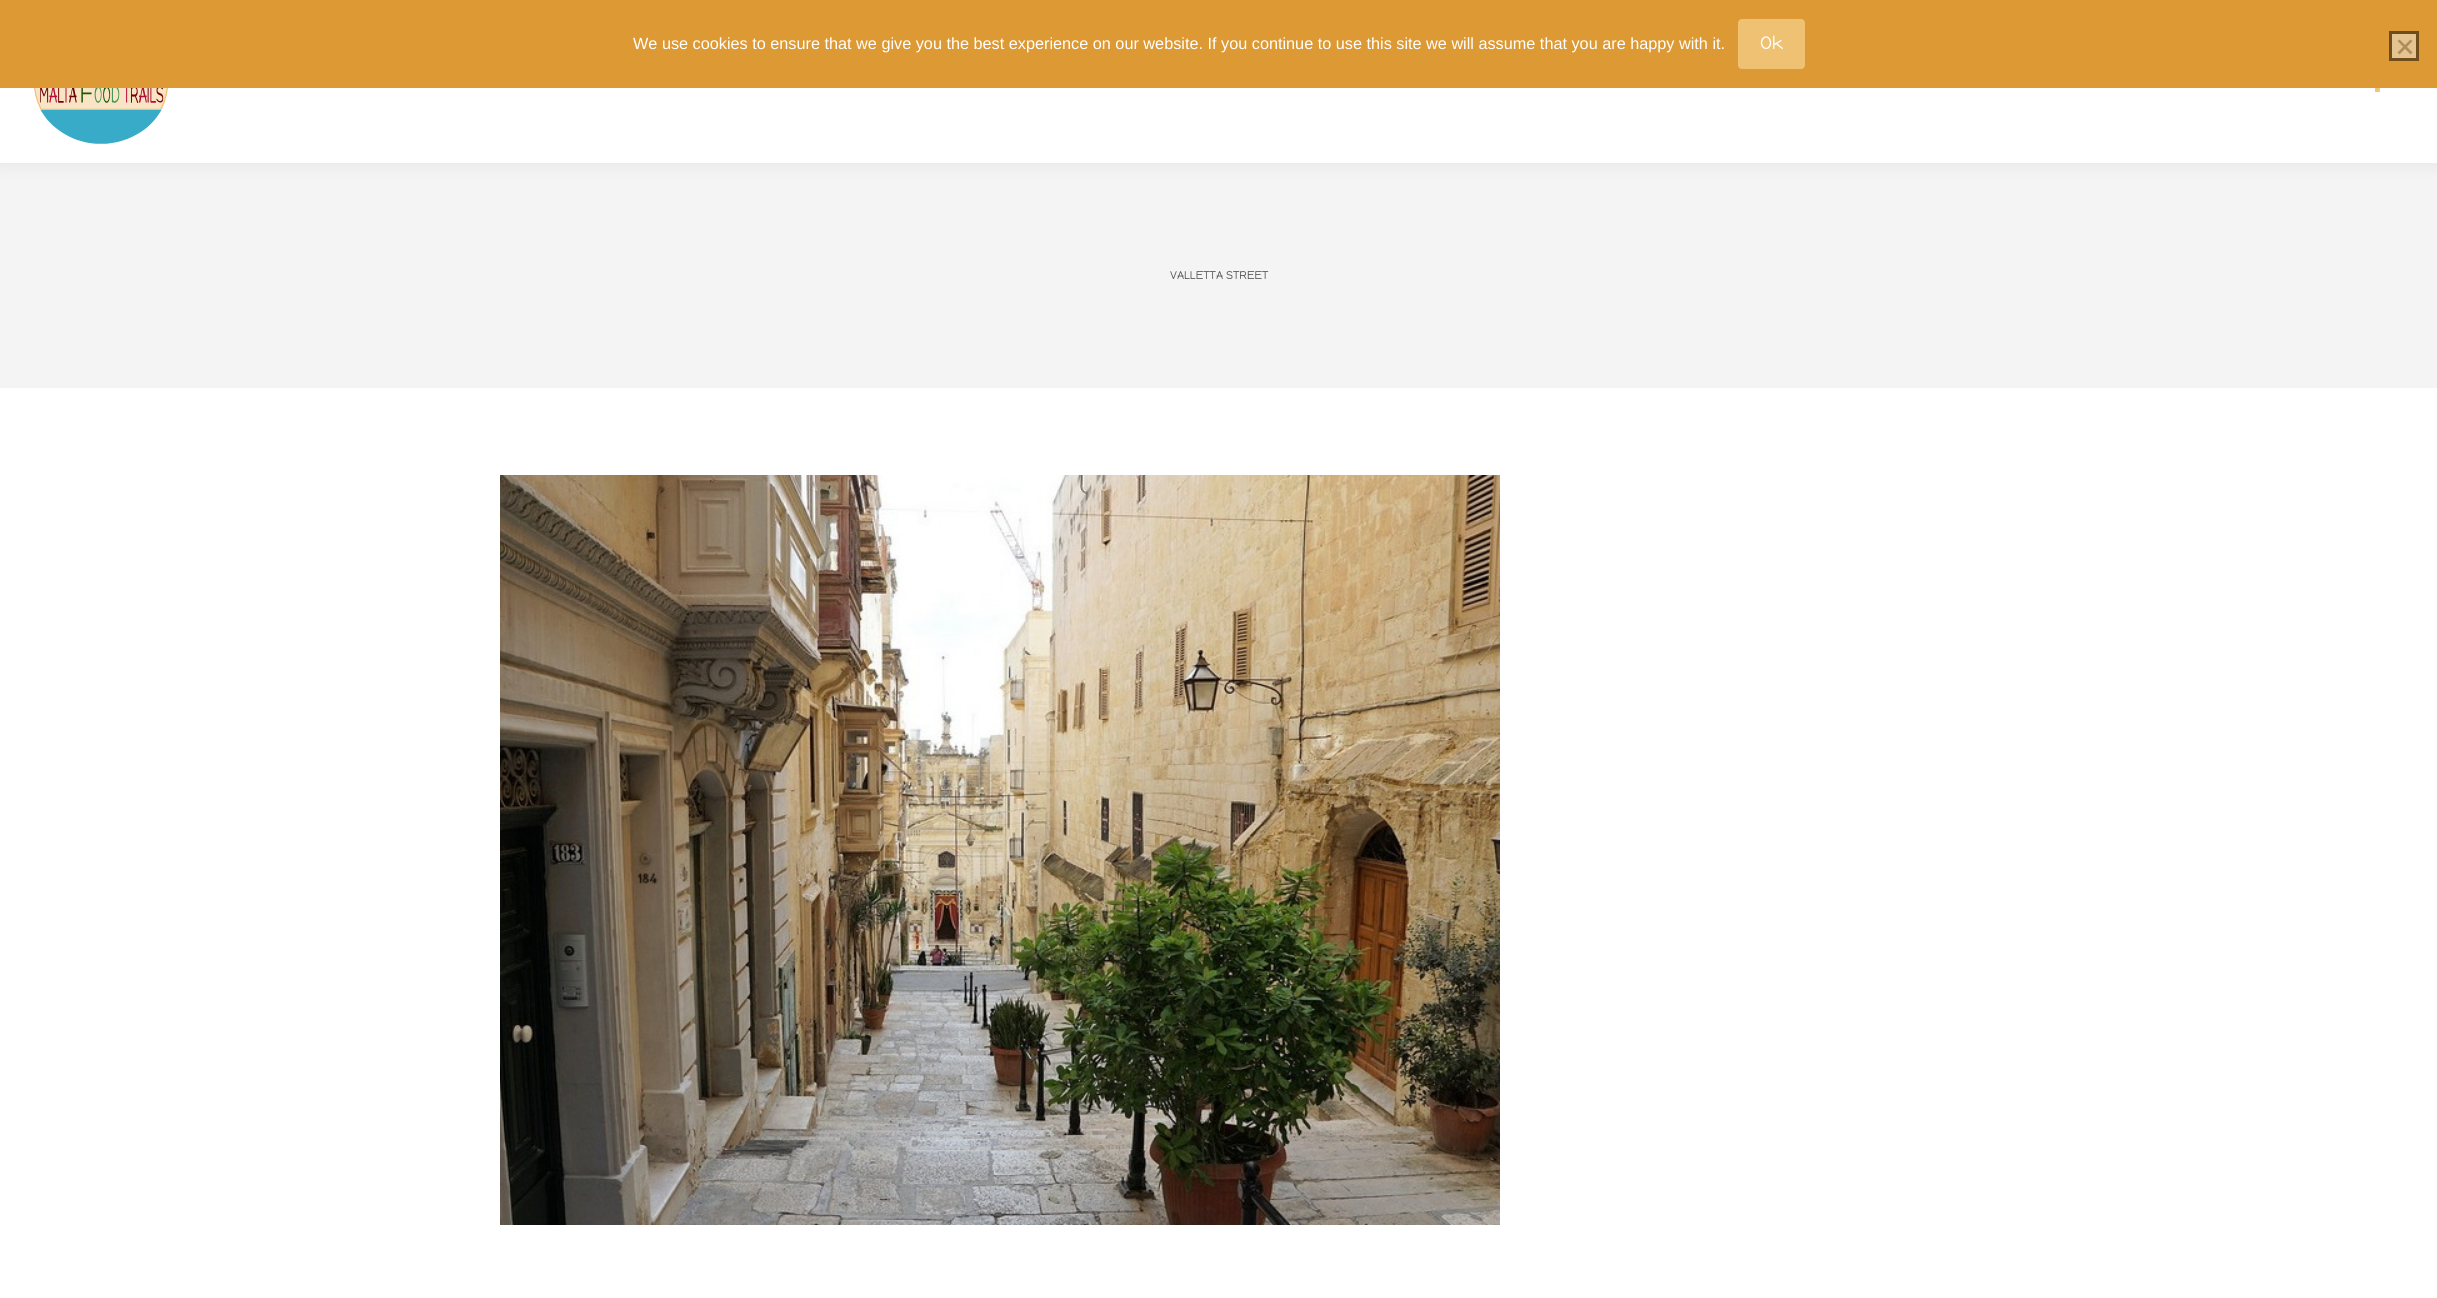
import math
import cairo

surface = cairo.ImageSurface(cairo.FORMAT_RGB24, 2437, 1298)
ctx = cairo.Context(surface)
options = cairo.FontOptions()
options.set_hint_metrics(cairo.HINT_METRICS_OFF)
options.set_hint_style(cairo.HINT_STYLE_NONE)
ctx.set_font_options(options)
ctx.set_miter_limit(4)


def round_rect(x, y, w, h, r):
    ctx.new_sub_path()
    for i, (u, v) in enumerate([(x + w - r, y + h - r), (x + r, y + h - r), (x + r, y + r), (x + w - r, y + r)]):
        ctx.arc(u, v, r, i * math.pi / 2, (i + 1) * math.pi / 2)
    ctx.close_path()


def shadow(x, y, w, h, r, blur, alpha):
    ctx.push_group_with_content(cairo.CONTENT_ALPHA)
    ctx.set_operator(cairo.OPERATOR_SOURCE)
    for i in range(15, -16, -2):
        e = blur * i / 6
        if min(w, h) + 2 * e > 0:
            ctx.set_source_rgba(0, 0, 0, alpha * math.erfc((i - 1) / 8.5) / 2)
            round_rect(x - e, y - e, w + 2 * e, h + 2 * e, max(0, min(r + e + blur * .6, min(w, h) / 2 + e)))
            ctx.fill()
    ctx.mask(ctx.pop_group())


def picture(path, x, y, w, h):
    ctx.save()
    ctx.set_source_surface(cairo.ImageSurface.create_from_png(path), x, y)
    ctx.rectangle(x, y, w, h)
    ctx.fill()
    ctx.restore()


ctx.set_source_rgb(1, 1, 1)
ctx.paint()
ctx.set_source_rgb(0.957, 0.957, 0.957)
ctx.rectangle(0, 163, 2437, 225)
ctx.fill()
ctx.set_source_rgb(0, 0, 0)
shadow(-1, -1, 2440, 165, 0, 9.5, 0.07)
ctx.set_source_rgb(0.867, 0.6, 0.2)
ctx.rectangle(0, 0, 2437, 88)
ctx.fill()
ctx.select_font_face("Liberation Sans")
ctx.set_font_size(16.25)
ctx.set_source_rgb(1, 1, 1)
ctx.move_to(633, 49)
ctx.show_text("We use cookies to ensure that we give you the best experience on our website. If you continue to use this site we will assume that you are happy with it.")
ctx.set_source_rgb(0.937, 0.761, 0.451)
round_rect(1738, 19, 67, 50, 4)
ctx.fill()
ctx.select_font_face("Happy Monkey")
ctx.set_font_size(18)
ctx.set_source_rgb(1, 1, 1)
ctx.move_to(1760, 49)
ctx.show_text("Ok")
ctx.set_source_rgb(0.902, 0.769, 0.569)
ctx.rectangle(2390.5, 32.5, 27, 27)
ctx.fill_preserve()
ctx.set_source_rgb(0.435, 0.302, 0.102)
ctx.set_line_width(3)
ctx.stroke()
ctx.set_source_rgb(0.686, 0.553, 0.353)
ctx.new_path()
ctx.move_to(2410.5, 39.5)
ctx.line_to(2412.5, 41)
ctx.line_to(2399.5, 54.5)
ctx.line_to(2397.5, 52.5)
ctx.close_path()
ctx.fill()
ctx.new_path()
ctx.move_to(2397.5, 41)
ctx.line_to(2399.5, 39.5)
ctx.line_to(2412.5, 52.5)
ctx.line_to(2410.5, 54.5)
ctx.close_path()
ctx.fill()
ctx.set_source_rgb(1, 1, 1)
ctx.rectangle(0, 88, 2437, 75)
ctx.fill()
picture("img1.png", 34, 88, 134, 56)
picture("img2.png", 2375, 88, 5, 4)
ctx.set_font_size(11.25)
ctx.set_source_rgb(0.329, 0.329, 0.329)
ctx.move_to(1170, 279)
ctx.show_text("VALLETTA STREET")
picture("img3.png", 500, 475, 1000, 750)
surface.write_to_png("page.png")
